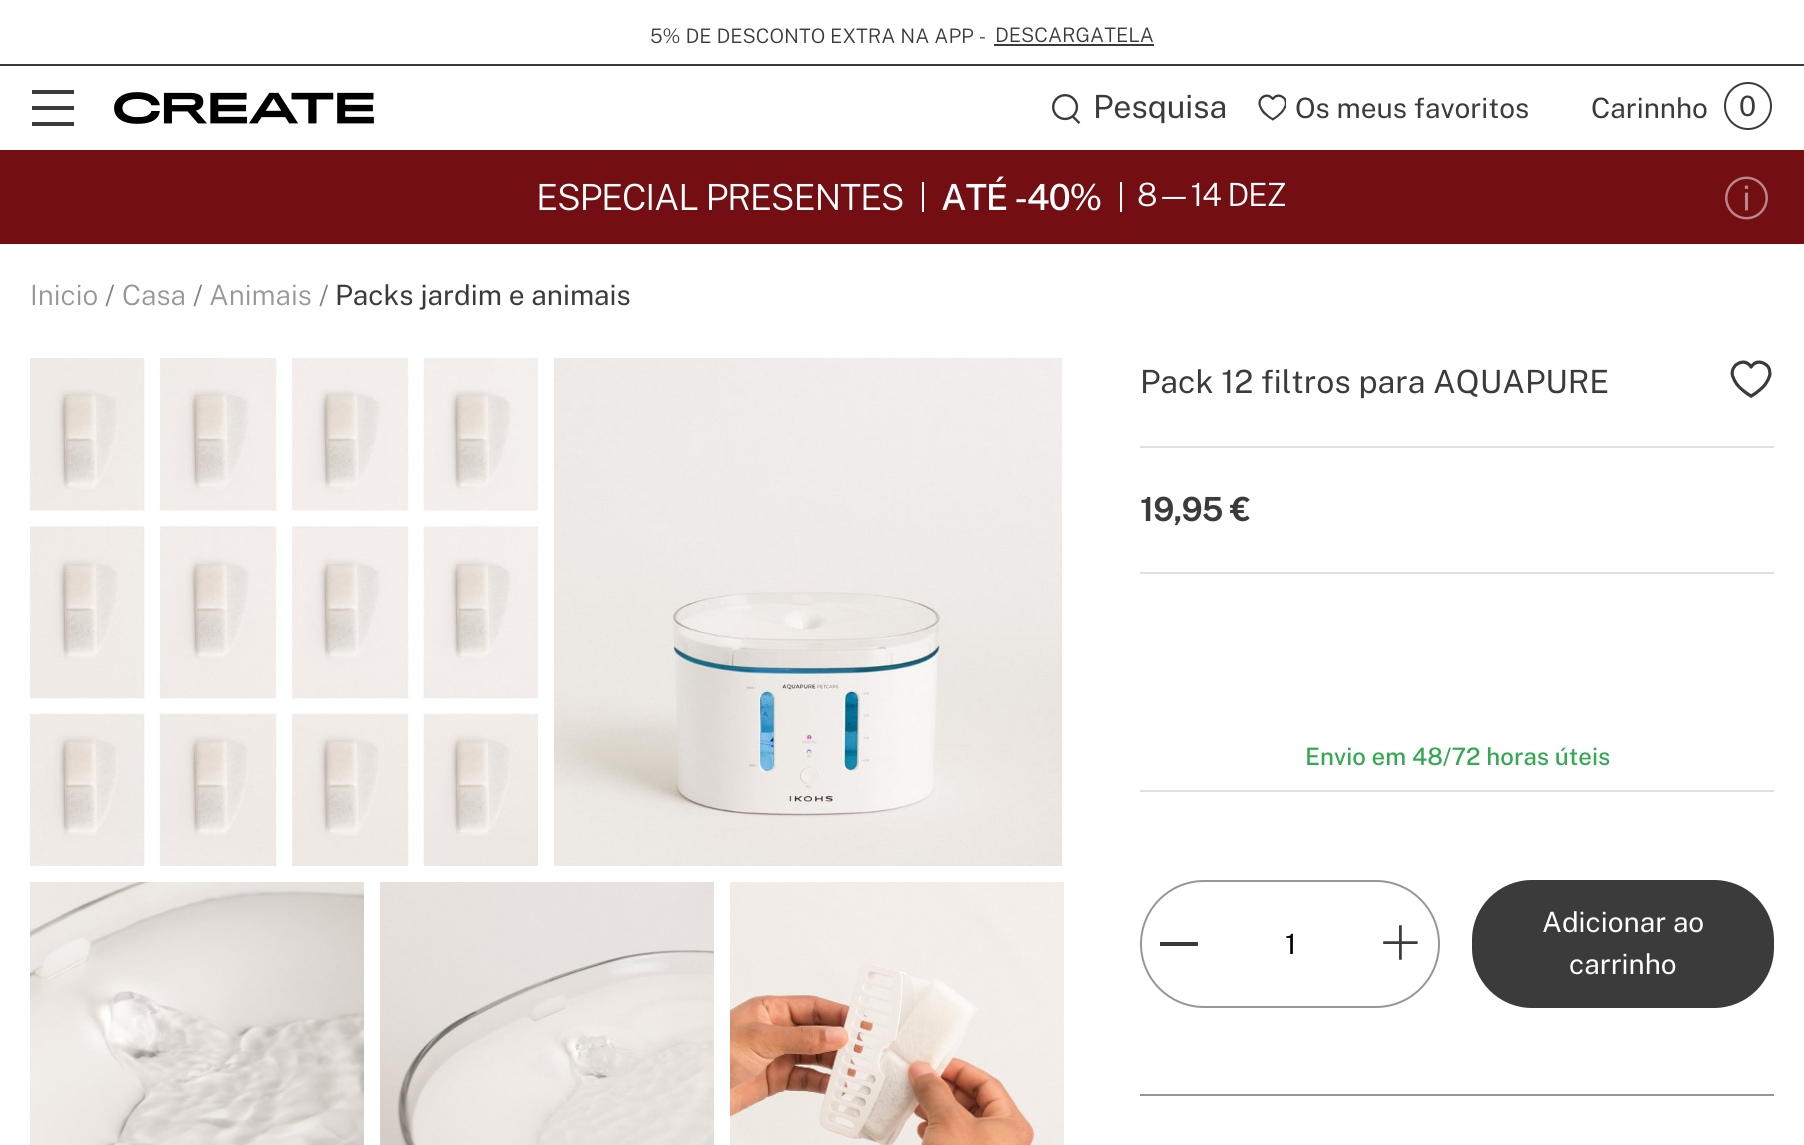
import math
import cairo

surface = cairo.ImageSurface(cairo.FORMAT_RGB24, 1804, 1145)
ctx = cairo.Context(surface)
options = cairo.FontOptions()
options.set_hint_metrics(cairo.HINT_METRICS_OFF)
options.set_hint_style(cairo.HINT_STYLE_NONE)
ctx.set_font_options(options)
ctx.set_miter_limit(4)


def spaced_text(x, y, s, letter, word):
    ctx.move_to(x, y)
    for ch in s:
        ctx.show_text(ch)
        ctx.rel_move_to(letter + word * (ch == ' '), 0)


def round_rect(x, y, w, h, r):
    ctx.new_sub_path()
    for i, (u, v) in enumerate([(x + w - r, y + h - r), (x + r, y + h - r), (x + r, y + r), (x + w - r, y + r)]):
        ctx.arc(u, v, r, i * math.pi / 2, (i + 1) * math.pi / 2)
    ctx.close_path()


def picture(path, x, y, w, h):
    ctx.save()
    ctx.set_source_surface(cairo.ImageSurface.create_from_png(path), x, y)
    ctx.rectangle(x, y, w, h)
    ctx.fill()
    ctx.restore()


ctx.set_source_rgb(1, 1, 1)
ctx.paint()
ctx.set_source_rgb(0.231, 0.231, 0.231)
ctx.rectangle(0, 64, 1804, 2)
ctx.fill()
ctx.select_font_face("Public Sans Light")
ctx.set_font_size(20)
ctx.move_to(650, 43)
ctx.show_text("5% DE DESCONTO EXTRA NA APP -")
ctx.rectangle(994, 44, 160, 2)
ctx.fill()
ctx.move_to(995, 42)
ctx.show_text("DESCARGATELA")
ctx.rectangle(32, 90, 42, 4)
ctx.fill()
ctx.rectangle(32, 122, 42, 4)
ctx.fill()
ctx.rectangle(32, 106, 42, 4)
ctx.fill()
picture("img1.png", 114, 92, 260, 32)
picture("img2.png", 1052, 94, 29, 30)
ctx.select_font_face("Public Sans")
ctx.set_font_size(32)
ctx.move_to(1093, 118)
ctx.show_text("Pesquisa")
picture("img3.png", 1258, 94, 28, 27)
ctx.set_font_size(28)
ctx.move_to(1295, 118)
ctx.show_text("Os meus favoritos")
ctx.move_to(1591, 118)
ctx.show_text("Carinnho")
ctx.new_path()
ctx.arc(1748, 106, 23, 0, 2 * math.pi)
ctx.stroke()
ctx.move_to(1739, 116)
ctx.show_text("0")
ctx.set_source_rgb(0.451, 0.055, 0.078)
ctx.rectangle(0, 150, 1804, 94)
ctx.fill()
ctx.select_font_face("Public Sans Light")
ctx.set_font_size(36)
ctx.set_source_rgb(1, 1, 1)
spaced_text(536, 210, "ESPECIAL PRESENTES", -1.25, 0)
ctx.rectangle(1120, 182, 2, 30)
ctx.fill()
ctx.rectangle(922, 182, 2, 30)
ctx.fill()
ctx.select_font_face("Public Sans Medium")
spaced_text(941, 210, "ATÉ -40%", -1.25, 0)
ctx.select_font_face("Public Sans Light")
ctx.set_font_size(32)
spaced_text(1137, 206, "8—14 DEZ", -1.25, 0)
picture("img4.png", 1725, 176, 43, 44)
ctx.set_font_size(28)
ctx.set_source_rgb(0.592, 0.592, 0.592)
ctx.move_to(30, 305)
ctx.show_text("Inicio")
ctx.set_source_rgb(0.502, 0.502, 0.502)
ctx.move_to(105, 305)
ctx.show_text("/")
ctx.set_source_rgb(0.592, 0.592, 0.592)
ctx.move_to(122, 305)
ctx.show_text("Casa")
ctx.set_source_rgb(0.502, 0.502, 0.502)
ctx.move_to(193, 305)
ctx.show_text("/")
ctx.set_source_rgb(0.592, 0.592, 0.592)
ctx.move_to(209, 305)
ctx.show_text("Animais")
ctx.set_source_rgb(0.502, 0.502, 0.502)
ctx.move_to(319, 305)
ctx.show_text("/")
ctx.select_font_face("Public Sans")
ctx.set_source_rgb(0.231, 0.231, 0.231)
ctx.move_to(335, 305)
ctx.show_text("Packs jardim e animais")
picture("img5.png", 30, 358, 508, 508)
picture("img6.png", 554, 358, 508, 508)
picture("img7.png", 30, 882, 334, 263)
picture("img8.png", 380, 882, 334, 263)
picture("img9.png", 730, 882, 334, 263)
ctx.set_source_rgb(0.878, 0.878, 0.878)
ctx.rectangle(1140, 446, 634, 2)
ctx.fill()
ctx.set_font_size(32)
ctx.set_source_rgb(0.231, 0.231, 0.231)
ctx.move_to(1140, 393)
ctx.show_text("Pack 12 filtros para AQUAPURE")
picture("img10.png", 1730, 360, 42, 38)
ctx.set_source_rgb(0.878, 0.878, 0.878)
ctx.rectangle(1140, 572, 634, 2)
ctx.fill()
ctx.select_font_face("Public Sans", cairo.FONT_SLANT_NORMAL, cairo.FONT_WEIGHT_BOLD)
ctx.set_source_rgb(0.231, 0.231, 0.231)
ctx.move_to(1140, 521)
ctx.show_text("19,95 €")
ctx.set_source_rgb(0.878, 0.878, 0.878)
ctx.rectangle(1140, 790, 634, 2)
ctx.fill()
ctx.select_font_face("Public Sans Medium")
ctx.set_font_size(24)
ctx.set_source_rgb(0.204, 0.659, 0.325)
ctx.move_to(1305, 765)
ctx.show_text("Envio em 48/72 horas úteis")
round_rect(1141, 881, 298, 126, 63)
ctx.set_source_rgb(0.592, 0.592, 0.592)
ctx.stroke()
ctx.set_source_rgb(0.231, 0.231, 0.231)
ctx.rectangle(1160, 942, 38, 4)
ctx.fill()
ctx.select_font_face("Public Sans")
ctx.set_font_size(28)
ctx.set_source_rgb(0, 0, 0)
ctx.move_to(1285, 954)
ctx.show_text("1")
picture("img11.png", 1383, 925, 35, 35)
ctx.set_source_rgb(0.231, 0.231, 0.231)
round_rect(1473, 881, 300, 126, 59)
ctx.fill_preserve()
ctx.stroke()
ctx.set_source_rgb(1, 1, 1)
ctx.move_to(1542, 932)
ctx.show_text("Adicionar ao")
ctx.move_to(1569, 974)
ctx.show_text("carrinho")
ctx.set_source_rgb(0.584, 0.584, 0.584)
ctx.rectangle(1140, 1094, 634, 2)
ctx.fill()
surface.write_to_png("page.png")
